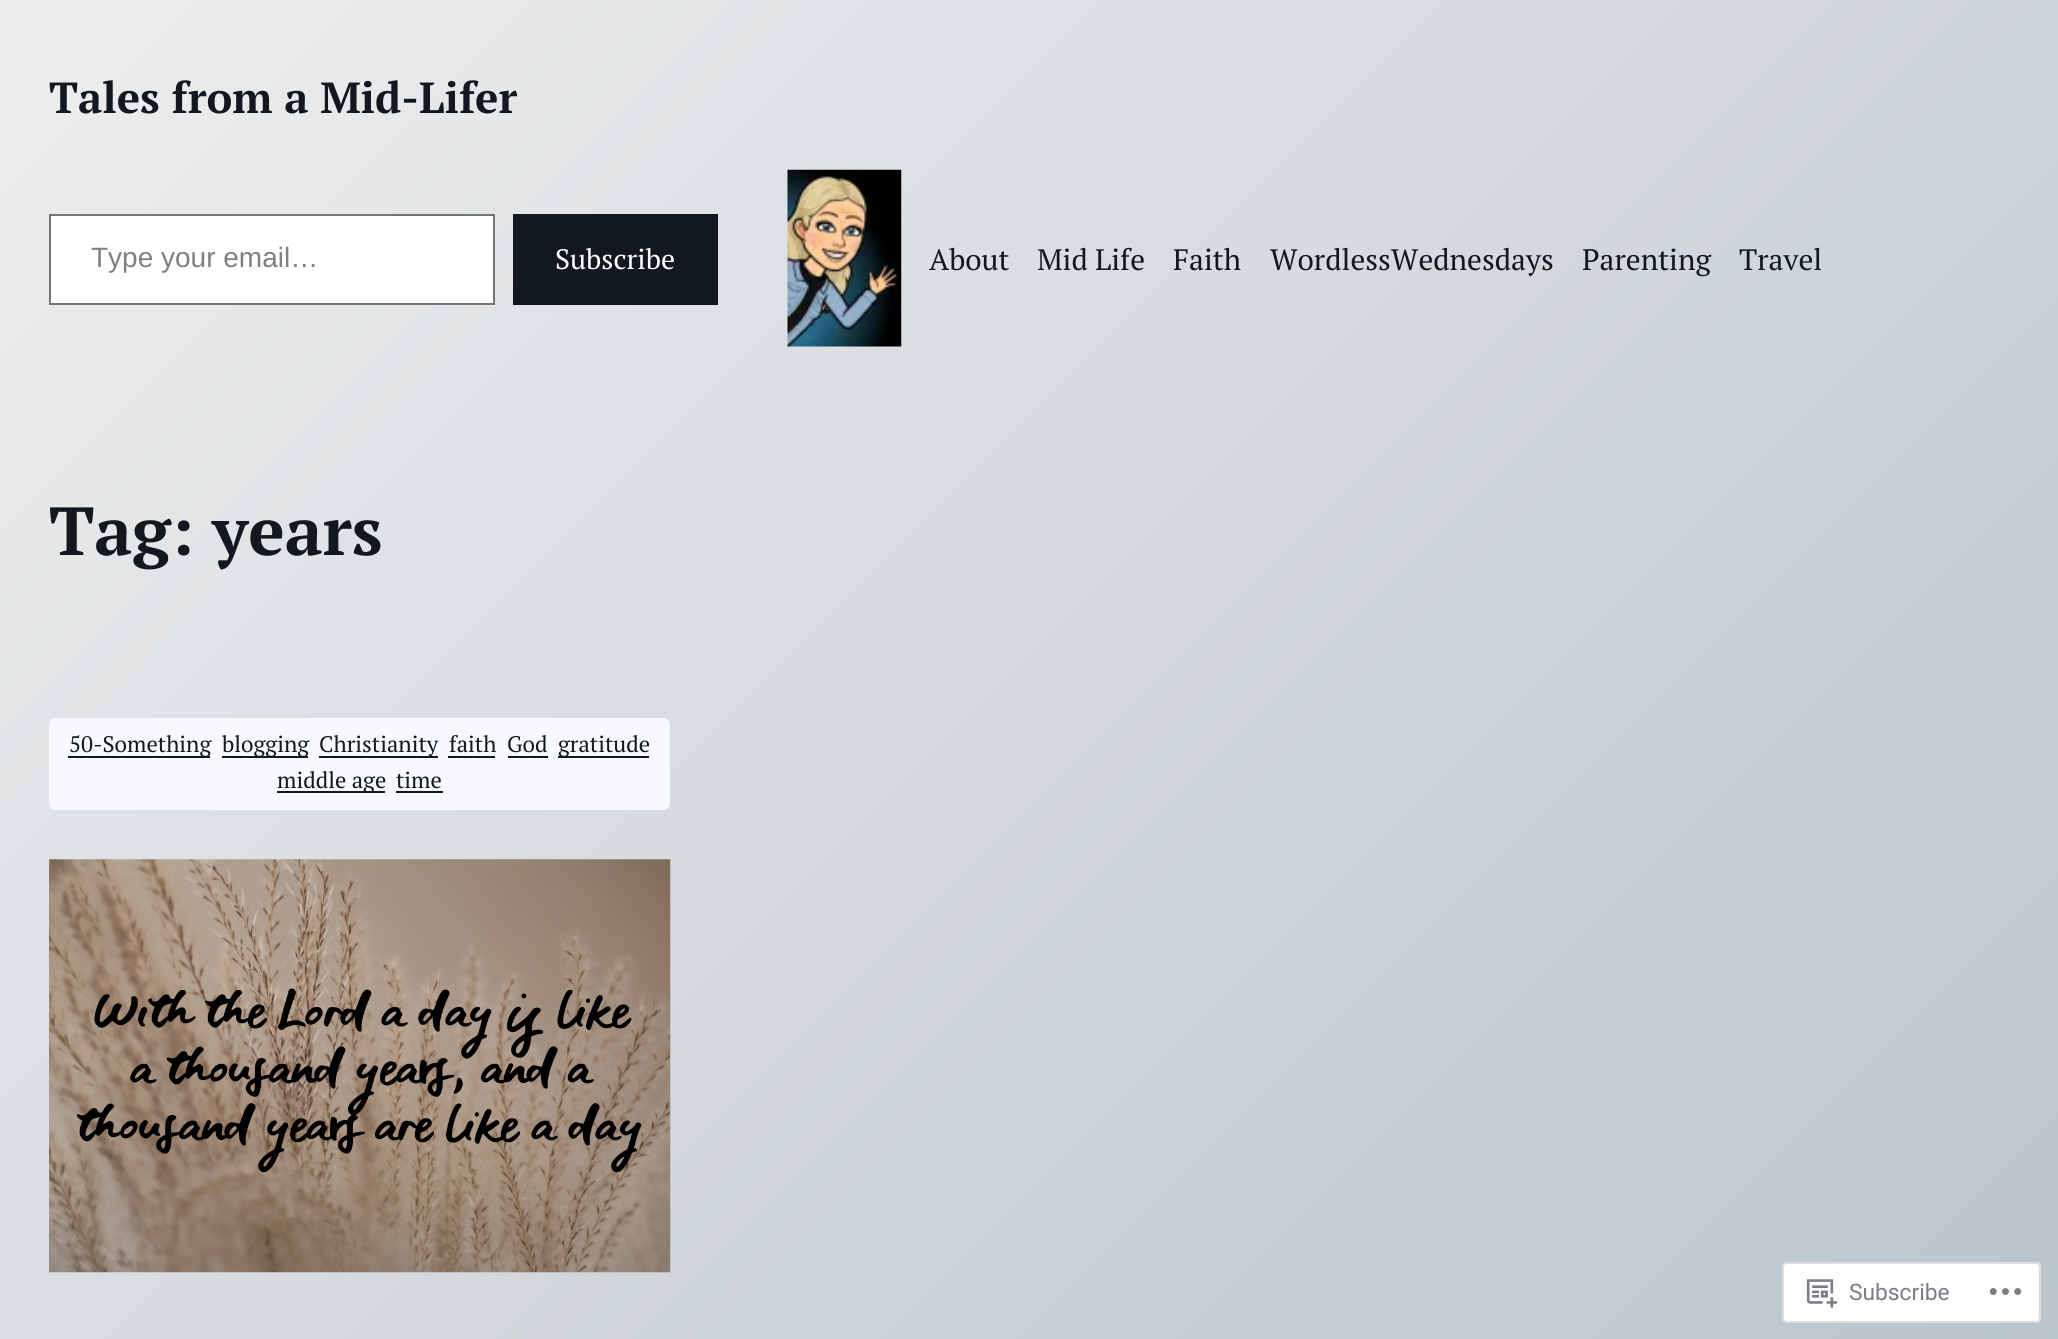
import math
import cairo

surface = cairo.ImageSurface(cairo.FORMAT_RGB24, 2058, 1339)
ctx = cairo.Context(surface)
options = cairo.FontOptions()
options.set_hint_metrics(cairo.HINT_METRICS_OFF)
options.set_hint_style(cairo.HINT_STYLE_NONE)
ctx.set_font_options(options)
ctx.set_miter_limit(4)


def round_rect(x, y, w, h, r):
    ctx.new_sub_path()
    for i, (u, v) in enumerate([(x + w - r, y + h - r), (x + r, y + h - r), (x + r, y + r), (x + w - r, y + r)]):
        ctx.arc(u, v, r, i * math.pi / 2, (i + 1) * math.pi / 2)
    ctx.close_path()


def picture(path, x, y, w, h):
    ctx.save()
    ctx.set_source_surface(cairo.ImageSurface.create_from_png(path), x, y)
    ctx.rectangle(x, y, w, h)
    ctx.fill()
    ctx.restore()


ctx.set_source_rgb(1, 1, 1)
ctx.paint()
gradient = cairo.LinearGradient(-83, 83, 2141, 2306)
gradient.add_color_stop_rgba(0, 0.933, 0.933, 0.933, 1)
gradient.add_color_stop_rgba(1, 0.663, 0.722, 0.765, 1)
ctx.set_source(gradient)
ctx.rectangle(0, 0, 2058, 1339)
ctx.fill()
ctx.select_font_face("PT Serif", cairo.FONT_SLANT_NORMAL, cairo.FONT_WEIGHT_BOLD)
ctx.set_font_size(43.5)
ctx.set_source_rgb(0.067, 0.094, 0.122)
ctx.move_to(49, 113)
ctx.show_text("Tales from a Mid-Lifer")
ctx.set_source_rgb(1, 1, 1)
ctx.rectangle(50, 215, 444, 89)
ctx.fill_preserve()
ctx.set_source_rgb(0.463, 0.463, 0.463)
ctx.stroke()
ctx.select_font_face("Liberation Sans")
ctx.set_font_size(28)
ctx.set_source_rgb(0.502, 0.502, 0.502)
ctx.move_to(91, 267)
ctx.show_text("Type your email…")
ctx.set_source_rgb(0.067, 0.094, 0.122)
ctx.rectangle(513, 214, 205, 91)
ctx.fill()
ctx.select_font_face("PT Serif")
ctx.set_source_rgb(1, 1, 1)
ctx.move_to(555, 269)
ctx.show_text("Subscribe")
picture("img1.png", 787, 169, 115, 178)
ctx.set_font_size(29.5)
ctx.set_source_rgb(0.067, 0.094, 0.122)
ctx.move_to(929, 270)
ctx.show_text("About")
ctx.move_to(1037, 270)
ctx.show_text("Mid Life")
ctx.move_to(1173, 270)
ctx.show_text("Faith")
ctx.move_to(1270, 270)
ctx.show_text("WordlessWednesdays")
ctx.move_to(1582, 270)
ctx.show_text("Parenting")
ctx.move_to(1739, 270)
ctx.show_text("Travel")
ctx.select_font_face("PT Serif", cairo.FONT_SLANT_NORMAL, cairo.FONT_WEIGHT_BOLD)
ctx.set_font_size(68)
ctx.move_to(49, 555)
ctx.show_text("Tag: years")
ctx.set_source_rgb(0.969, 0.976, 0.992)
round_rect(49, 718, 621, 92, 7)
ctx.fill()
ctx.set_source_rgb(0.067, 0.094, 0.122)
ctx.rectangle(68, 756, 142, 2)
ctx.fill()
ctx.select_font_face("PT Serif")
ctx.set_font_size(22.5)
ctx.move_to(69, 752)
ctx.show_text("50-Something")
ctx.rectangle(222, 756, 86, 2)
ctx.fill()
ctx.move_to(222, 752)
ctx.show_text("blogging")
ctx.rectangle(319, 756, 119, 2)
ctx.fill()
ctx.move_to(319, 752)
ctx.show_text("Christianity")
ctx.move_to(449, 752)
ctx.show_text("faith")
ctx.rectangle(448, 756, 47, 2)
ctx.fill()
ctx.move_to(507, 752)
ctx.show_text("God")
ctx.rectangle(508, 756, 40, 2)
ctx.fill()
ctx.rectangle(558, 756, 91, 2)
ctx.fill()
ctx.move_to(558, 752)
ctx.show_text("gratitude")
ctx.rectangle(277, 791, 108, 2)
ctx.fill()
ctx.move_to(277, 788)
ctx.show_text("middle age")
ctx.move_to(396, 788)
ctx.show_text("time")
ctx.rectangle(396, 791, 47, 2)
ctx.fill()
picture("img2.png", 49, 859, 622, 414)
ctx.set_source_rgba(1, 1, 1, 0.98)
round_rect(1782, 1262, 259, 61, 5)
ctx.fill()
round_rect(1783, 1263, 257, 59, 4)
ctx.set_source_rgba(0.863, 0.863, 0.871, 0.98)
ctx.stroke()
picture("img3.png", 1806, 1279, 32, 29)
ctx.select_font_face("Roboto")
ctx.set_font_size(22.75)
ctx.set_source_rgb(0.475, 0.494, 0.518)
ctx.move_to(1849, 1300)
ctx.show_text("Subscribe")
picture("img4.png", 1989, 1288, 33, 7)
surface.write_to_png("page.png")
